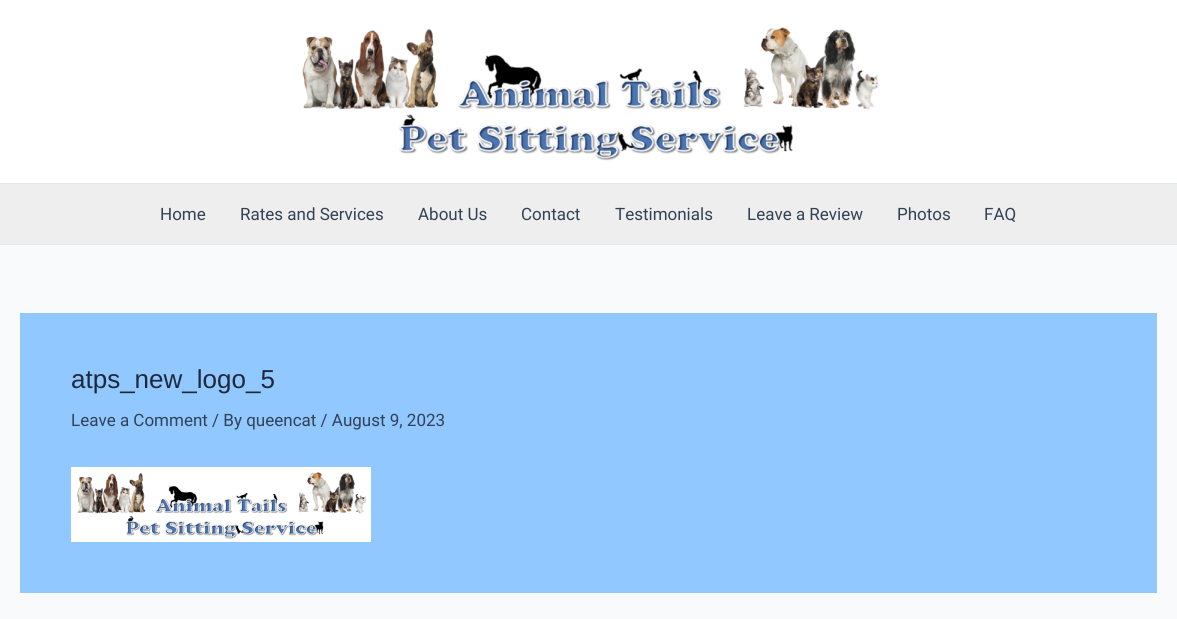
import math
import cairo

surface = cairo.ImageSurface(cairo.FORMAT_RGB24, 1177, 619)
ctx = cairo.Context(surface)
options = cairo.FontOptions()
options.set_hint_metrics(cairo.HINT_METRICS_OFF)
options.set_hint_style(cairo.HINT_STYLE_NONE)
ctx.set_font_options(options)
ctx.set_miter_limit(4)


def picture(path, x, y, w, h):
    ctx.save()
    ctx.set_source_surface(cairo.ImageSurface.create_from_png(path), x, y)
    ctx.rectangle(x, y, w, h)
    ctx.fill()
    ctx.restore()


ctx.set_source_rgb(0.976, 0.98, 0.984)
ctx.paint()
ctx.set_source_rgb(1, 1, 1)
ctx.rectangle(0, 0, 1177, 183)
ctx.fill()
ctx.set_source_rgb(0.886, 0.91, 0.941)
ctx.rectangle(0, 183, 1177, 1)
ctx.fill()
picture("img1.png", 302, 27, 577, 134)
ctx.set_source_rgb(0.933, 0.933, 0.933)
ctx.rectangle(0, 184, 1177, 60)
ctx.fill()
ctx.set_source_rgb(0.886, 0.91, 0.941)
ctx.rectangle(0, 244, 1177, 1)
ctx.fill()
ctx.select_font_face("Roboto")
ctx.set_font_size(17)
ctx.set_source_rgb(0.2, 0.255, 0.333)
ctx.move_to(160, 220)
ctx.show_text("Home")
ctx.move_to(240, 220)
ctx.show_text("Rates and Services")
ctx.move_to(418, 220)
ctx.show_text("About Us")
ctx.move_to(521, 220)
ctx.show_text("Contact")
ctx.move_to(615, 220)
ctx.show_text("Testimonials")
ctx.move_to(747, 220)
ctx.show_text("Leave a Review")
ctx.move_to(897, 220)
ctx.show_text("Photos")
ctx.move_to(984, 220)
ctx.show_text("FAQ")
ctx.set_source_rgb(0.565, 0.784, 1)
ctx.rectangle(20, 313, 1137, 280)
ctx.fill()
ctx.select_font_face("Liberation Sans")
ctx.set_font_size(26)
ctx.set_source_rgb(0.118, 0.161, 0.231)
ctx.move_to(71, 388)
ctx.show_text("atps_new_logo_5")
ctx.select_font_face("Roboto")
ctx.set_font_size(17)
ctx.set_source_rgb(0.2, 0.255, 0.333)
ctx.move_to(71, 426)
ctx.show_text("Leave a Comment / By queencat / August 9, 2023")
picture("img2.png", 71, 467, 300, 75)
surface.write_to_png("page.png")
